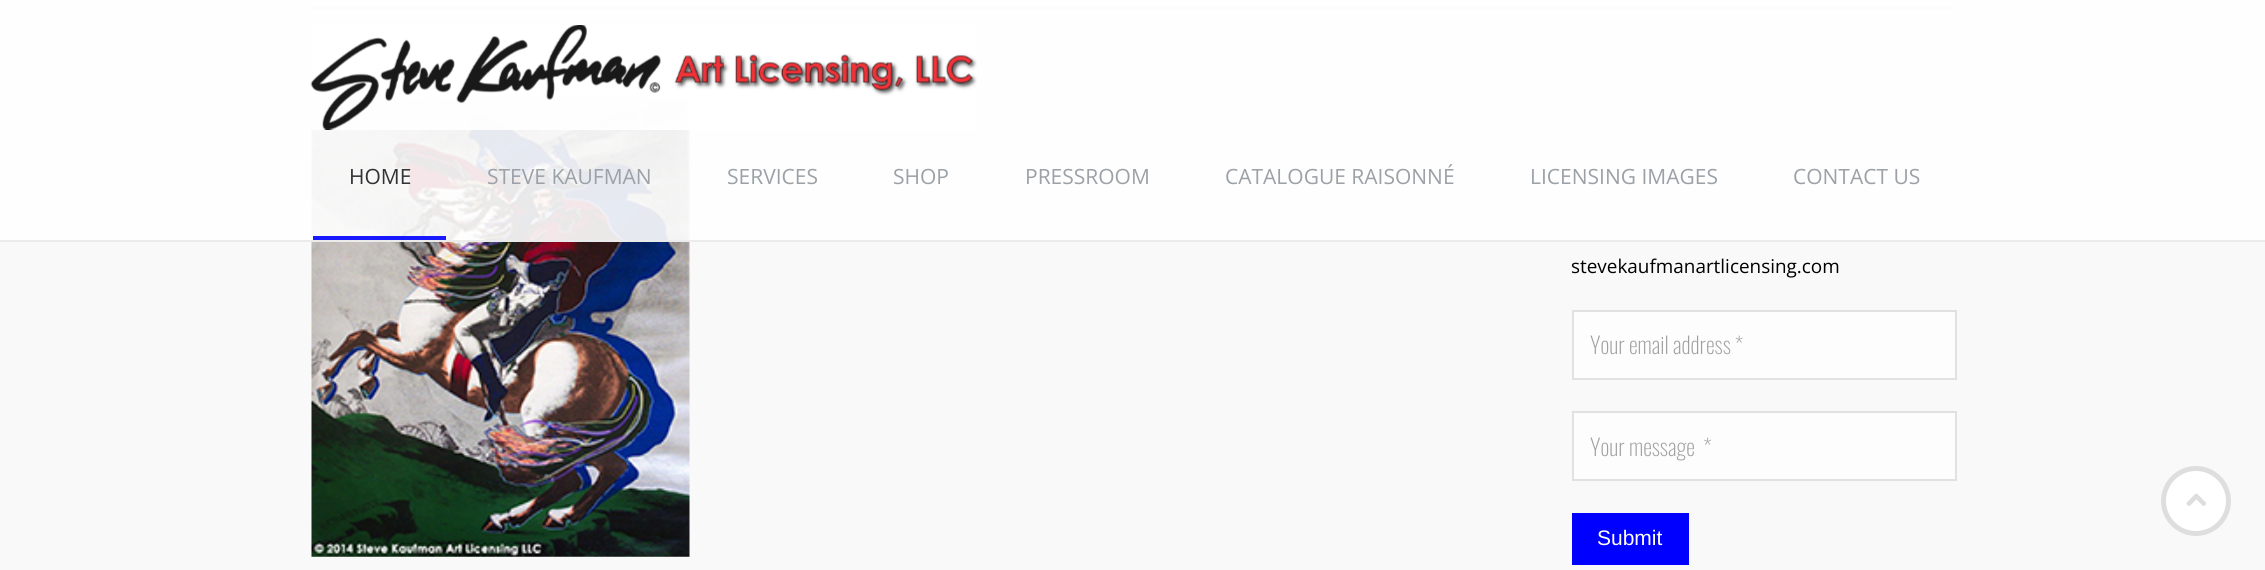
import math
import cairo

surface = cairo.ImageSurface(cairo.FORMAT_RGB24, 2265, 570)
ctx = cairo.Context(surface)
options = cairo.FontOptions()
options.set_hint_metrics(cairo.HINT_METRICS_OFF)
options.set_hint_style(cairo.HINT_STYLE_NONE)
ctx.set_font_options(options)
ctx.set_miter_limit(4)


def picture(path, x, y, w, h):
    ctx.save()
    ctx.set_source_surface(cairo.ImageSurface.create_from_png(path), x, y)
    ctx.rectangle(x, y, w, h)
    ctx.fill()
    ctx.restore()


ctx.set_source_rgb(0.973, 0.973, 0.973)
ctx.paint()
ctx.set_source_rgb(0.882, 0.882, 0.882)
ctx.rectangle(312, 7, 1645, 2)
ctx.fill()
picture("img2.png", 311, 96, 379, 461)
ctx.set_source_rgba(1, 1, 1, 0.9)
ctx.rectangle(0, 0, 2265, 242)
ctx.fill()
ctx.set_source_rgba(0.918, 0.918, 0.918, 0.9)
ctx.rectangle(0, 240, 2265, 2)
ctx.fill()
picture("img1.png", 310, 25, 667, 105)
ctx.select_font_face("Open Sans")
ctx.set_font_size(21)
ctx.set_source_rgb(0.192, 0.2, 0.204)
ctx.move_to(349, 184)
ctx.show_text("HOME")
ctx.set_source_rgb(0.608, 0.631, 0.651)
ctx.move_to(487, 184)
ctx.show_text("STEVE KAUFMAN")
ctx.move_to(727, 184)
ctx.show_text("SERVICES")
ctx.move_to(893, 184)
ctx.show_text("SHOP")
ctx.move_to(1025, 184)
ctx.show_text("PRESSROOM")
ctx.move_to(1225, 184)
ctx.show_text("CATALOGUE RAISONNÉ")
ctx.move_to(1530, 184)
ctx.show_text("LICENSING IMAGES")
ctx.move_to(1793, 184)
ctx.show_text("CONTACT US")
ctx.set_source_rgba(0, 0, 1, 0.9)
ctx.rectangle(313, 236, 133, 4)
ctx.fill()
ctx.set_font_size(18.9)
ctx.set_source_rgb(0, 0, 0)
ctx.move_to(1571, 273)
ctx.show_text("stevekaufmanartlicensing.com")
ctx.set_source_rgb(0.992, 0.992, 0.992)
ctx.rectangle(1573, 311, 383, 68)
ctx.fill_preserve()
ctx.set_source_rgb(0.882, 0.882, 0.882)
ctx.stroke()
ctx.select_font_face("Oswald ExtraLight")
ctx.set_font_size(22.75)
ctx.set_source_rgb(0.624, 0.624, 0.624)
ctx.move_to(1590, 354)
ctx.show_text("Your email address *")
ctx.set_source_rgb(0.992, 0.992, 0.992)
ctx.rectangle(1573, 412, 383, 68)
ctx.fill_preserve()
ctx.set_source_rgb(0.882, 0.882, 0.882)
ctx.stroke()
ctx.set_source_rgb(0.624, 0.624, 0.624)
ctx.move_to(1590, 456)
ctx.show_text("Your message  *")
ctx.set_source_rgb(0, 0, 1)
ctx.rectangle(1572, 513, 117, 52)
ctx.fill()
ctx.select_font_face("Liberation Sans")
ctx.set_font_size(21)
ctx.set_source_rgb(1, 1, 1)
ctx.move_to(1597, 545)
ctx.show_text("Submit")
ctx.new_path()
ctx.arc(2196, 501, 32.5, 0, 2 * math.pi)
ctx.fill_preserve()
ctx.set_source_rgb(0.871, 0.871, 0.875)
ctx.set_line_width(5)
ctx.stroke()
picture("img3.png", 2186, 493, 21, 13)
surface.write_to_png("page.png")
